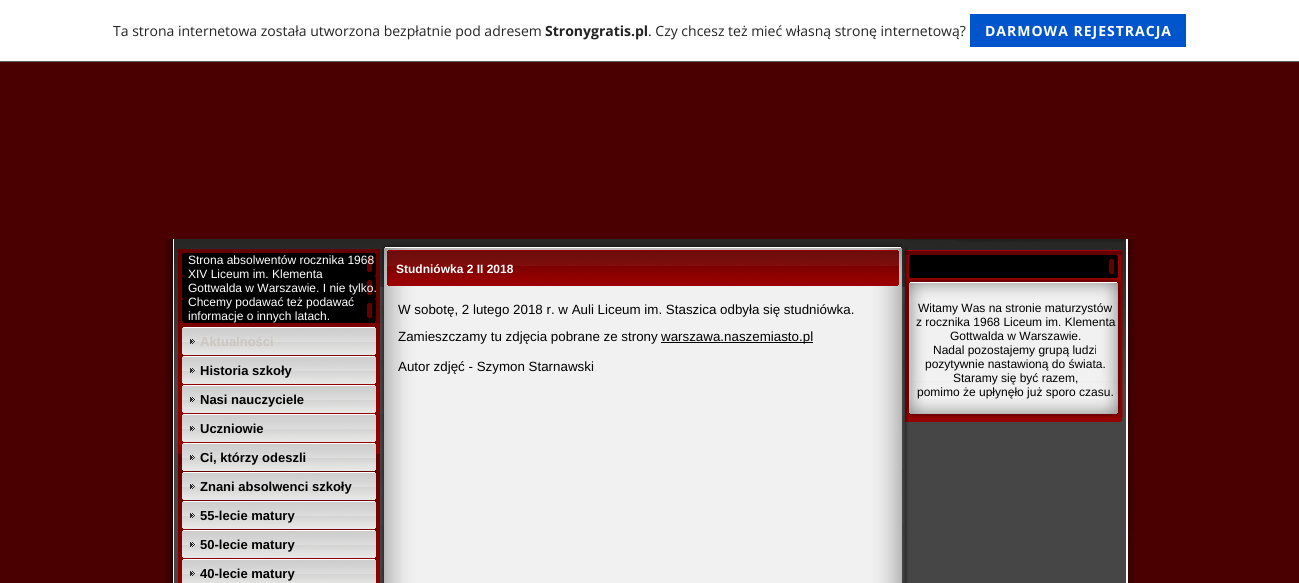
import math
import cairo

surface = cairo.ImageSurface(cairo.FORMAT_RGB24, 1299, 583)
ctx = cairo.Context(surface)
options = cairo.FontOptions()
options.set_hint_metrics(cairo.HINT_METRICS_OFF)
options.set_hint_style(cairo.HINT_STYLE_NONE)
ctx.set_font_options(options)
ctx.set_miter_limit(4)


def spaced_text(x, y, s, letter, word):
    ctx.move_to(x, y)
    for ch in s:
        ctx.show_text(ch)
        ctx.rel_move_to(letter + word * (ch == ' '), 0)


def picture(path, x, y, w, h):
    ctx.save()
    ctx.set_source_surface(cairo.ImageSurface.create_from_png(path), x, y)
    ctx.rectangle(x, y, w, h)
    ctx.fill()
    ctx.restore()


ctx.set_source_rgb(0.29, 0, 0.004)
ctx.paint()
ctx.set_source_rgb(1, 1, 1)
ctx.rectangle(0, 0, 1299, 61)
ctx.fill()
ctx.set_source_rgb(0.353, 0.353, 0.353)
ctx.rectangle(0, 61, 1299, 1)
ctx.fill()
ctx.select_font_face("Open Sans")
ctx.set_font_size(14)
ctx.set_source_rgb(0.137, 0.137, 0.137)
ctx.move_to(113, 36)
ctx.show_text("Ta strona internetowa została utworzona bezpłatnie pod adresem")
ctx.select_font_face("Open Sans", cairo.FONT_SLANT_NORMAL, cairo.FONT_WEIGHT_BOLD)
ctx.move_to(545, 36)
ctx.show_text("Stronygratis.pl")
ctx.select_font_face("Open Sans")
ctx.move_to(648, 36)
ctx.show_text(". Czy chcesz też mieć własną stronę internetową?")
ctx.set_source_rgb(0, 0.333, 0.8)
ctx.rectangle(970, 14, 216, 33)
ctx.fill()
ctx.select_font_face("Open Sans", cairo.FONT_SLANT_NORMAL, cairo.FONT_WEIGHT_BOLD)
ctx.set_source_rgb(1, 1, 1)
spaced_text(985, 36, "DARMOWA REJESTRACJA", 1, 0)
picture("img1.png", 163, 239, 10, 344)
picture("img2.png", 173, 239, 955, 344)
picture("img3.png", 174, 239, 206, 344)
ctx.set_source_rgb(0.392, 0, 0)
ctx.rectangle(178, 249, 202, 4)
ctx.fill()
picture("img4.png", 178, 323, 202, 260)
picture("img5.png", 178, 253, 202, 70)
ctx.select_font_face("Liberation Sans")
ctx.set_font_size(12)
ctx.set_source_rgb(1, 1, 1)
ctx.move_to(188, 264)
ctx.show_text("Strona absolwentów rocznika 1968")
ctx.move_to(188, 278)
ctx.show_text("XIV Liceum im. Klementa")
ctx.move_to(188, 292)
ctx.show_text("Gottwalda w Warszawie. I nie tylko.")
ctx.move_to(188, 306)
ctx.show_text("Chcemy podawać też podawać")
ctx.move_to(188, 320)
ctx.show_text("informacje o innych latach.")
picture("img6.png", 182, 327, 194, 28)
ctx.select_font_face("Liberation Sans", cairo.FONT_SLANT_NORMAL, cairo.FONT_WEIGHT_BOLD)
ctx.set_font_size(13)
ctx.set_source_rgb(0.796, 0.776, 0.749)
ctx.move_to(200, 346)
ctx.show_text("Aktualności")
picture("img7.png", 182, 356, 194, 28)
ctx.set_source_rgb(0, 0, 0)
ctx.move_to(200, 375)
ctx.show_text("Historia szkoły")
picture("img8.png", 182, 385, 194, 28)
ctx.move_to(200, 404)
ctx.show_text("Nasi nauczyciele")
picture("img9.png", 182, 414, 194, 28)
ctx.move_to(200, 433)
ctx.show_text("Uczniowie")
picture("img10.png", 182, 443, 194, 28)
ctx.move_to(200, 462)
ctx.show_text("Ci, którzy odeszli")
picture("img11.png", 182, 472, 194, 28)
ctx.move_to(200, 491)
ctx.show_text("Znani absolwenci szkoły")
picture("img12.png", 182, 501, 194, 28)
ctx.move_to(200, 520)
ctx.show_text("55-lecie matury")
picture("img13.png", 182, 530, 194, 28)
ctx.move_to(200, 549)
ctx.show_text("50-lecie matury")
picture("img14.png", 182, 559, 194, 24)
ctx.move_to(200, 578)
ctx.show_text("40-lecie matury")
picture("img15.png", 380, 239, 525, 11)
picture("img16.png", 382, 244, 520, 6)
picture("img17.png", 380, 287, 525, 296)
picture("img18.png", 380, 250, 525, 37)
ctx.set_font_size(12)
ctx.set_source_rgb(1, 1, 1)
ctx.move_to(396, 273)
ctx.show_text("Studniówka 2 II 2018")
ctx.select_font_face("Liberation Sans")
ctx.set_font_size(13.35)
ctx.set_source_rgb(0, 0, 0)
ctx.move_to(398, 314)
ctx.show_text("W sobotę, 2 lutego 2018 r. w Auli Liceum im. Staszica odbyła się studniówka.")
ctx.move_to(398, 341)
ctx.show_text("Zamieszczamy tu zdjęcia pobrane ze strony")
ctx.rectangle(661, 342, 152, 1)
ctx.fill()
ctx.move_to(661, 341)
ctx.show_text("warszawa.naszemiasto.pl")
ctx.move_to(398, 371)
ctx.show_text("Autor zdjęć - Szymon Starnawski")
picture("img19.png", 905, 239, 221, 344)
picture("img20.png", 905, 239, 218, 179)
picture("img21.png", 905, 255, 217, 23)
picture("img22.png", 905, 278, 217, 23)
picture("img23.png", 905, 301, 217, 98)
ctx.set_font_size(12)
ctx.move_to(918, 312)
ctx.show_text("Witamy Was na stronie maturzystów")
ctx.move_to(916, 326)
ctx.show_text("z rocznika 1968 Liceum im. Klementa")
ctx.move_to(950, 340)
ctx.show_text("Gottwalda w Warszawie.")
ctx.move_to(933, 354)
ctx.show_text("Nadal pozostajemy grupą ludzi")
ctx.move_to(925, 368)
ctx.show_text("pozytywnie nastawioną do świata.")
ctx.move_to(953, 382)
ctx.show_text("Staramy się być razem,")
ctx.move_to(917, 396)
ctx.show_text("pomimo że upłynęło już sporo czasu.")
picture("img24.png", 906, 399, 215, 18)
picture("img25.png", 905, 418, 217, 4)
picture("img26.png", 1128, 239, 7, 344)
surface.write_to_png("page.png")
